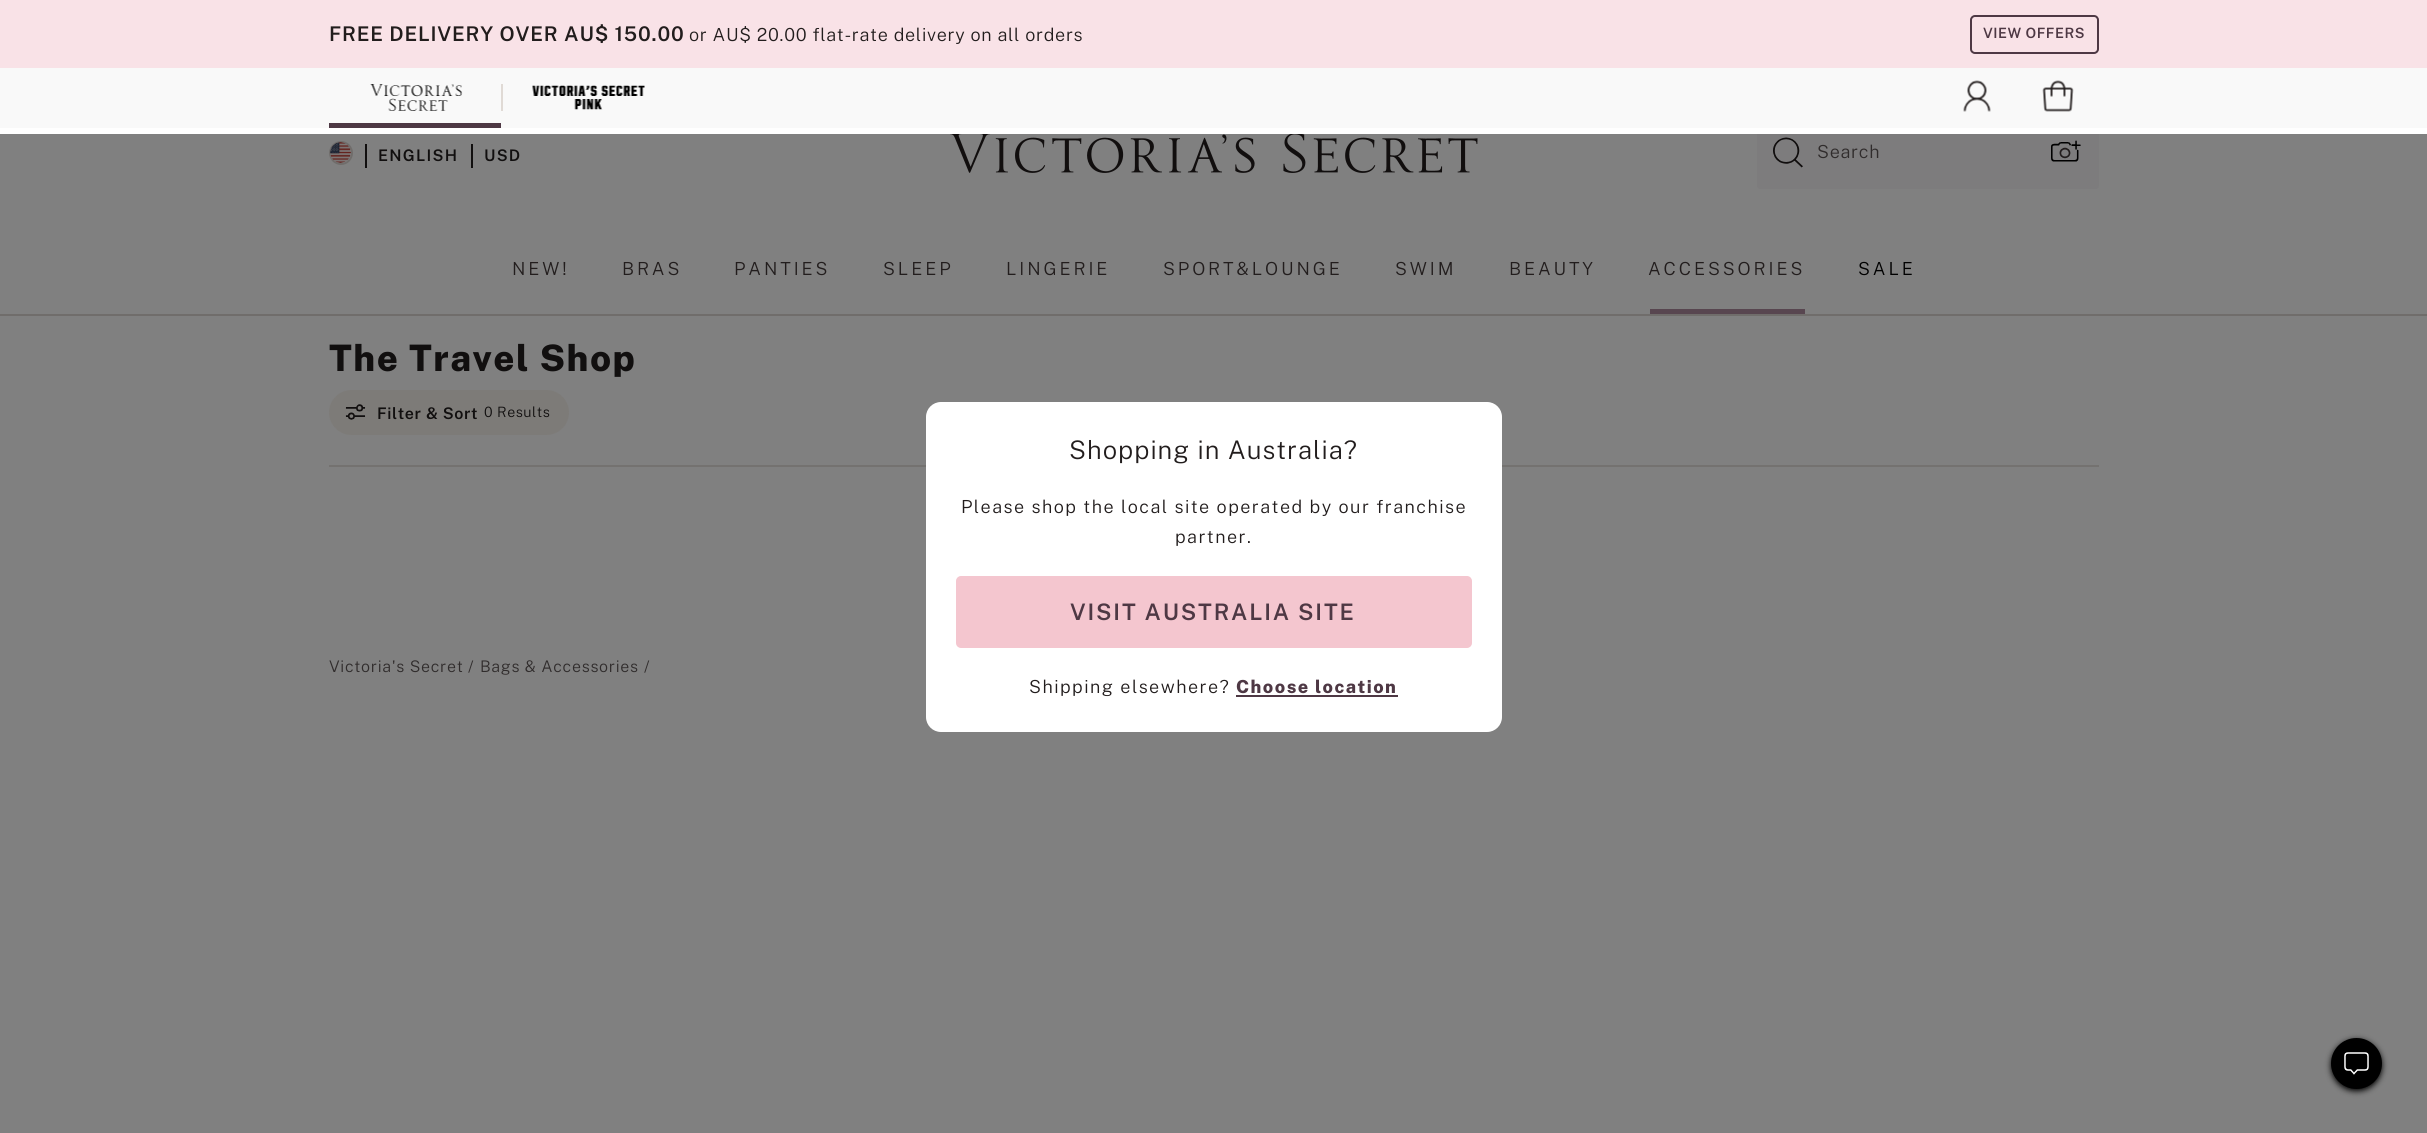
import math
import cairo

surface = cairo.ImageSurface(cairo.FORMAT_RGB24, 2427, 1133)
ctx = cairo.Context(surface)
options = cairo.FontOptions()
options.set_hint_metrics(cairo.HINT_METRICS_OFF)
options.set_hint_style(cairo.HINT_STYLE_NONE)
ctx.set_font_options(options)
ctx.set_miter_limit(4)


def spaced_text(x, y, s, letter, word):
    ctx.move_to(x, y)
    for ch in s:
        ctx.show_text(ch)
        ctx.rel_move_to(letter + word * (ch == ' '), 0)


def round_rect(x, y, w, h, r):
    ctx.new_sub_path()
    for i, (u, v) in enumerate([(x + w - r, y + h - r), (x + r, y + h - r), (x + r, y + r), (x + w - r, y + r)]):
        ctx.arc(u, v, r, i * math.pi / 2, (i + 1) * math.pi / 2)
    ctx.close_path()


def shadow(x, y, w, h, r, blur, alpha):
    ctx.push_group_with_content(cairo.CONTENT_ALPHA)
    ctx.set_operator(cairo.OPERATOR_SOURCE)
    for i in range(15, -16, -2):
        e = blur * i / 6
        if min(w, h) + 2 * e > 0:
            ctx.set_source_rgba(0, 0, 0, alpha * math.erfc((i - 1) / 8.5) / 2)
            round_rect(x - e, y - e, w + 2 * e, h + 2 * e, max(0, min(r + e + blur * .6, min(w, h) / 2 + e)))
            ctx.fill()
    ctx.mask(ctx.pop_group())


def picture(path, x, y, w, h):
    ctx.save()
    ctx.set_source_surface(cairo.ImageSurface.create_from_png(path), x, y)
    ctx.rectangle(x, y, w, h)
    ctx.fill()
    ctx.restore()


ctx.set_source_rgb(0.502, 0.502, 0.502)
ctx.paint()
ctx.set_source_rgb(0.49, 0.486, 0.49)
round_rect(1757, 117, 342, 72, 3)
ctx.fill()
ctx.set_source_rgb(0.976, 0.973, 0.976)
ctx.rectangle(0, 68, 2427, 60)
ctx.fill()
ctx.set_source_rgb(1, 1, 1)
ctx.rectangle(0, 128, 2427, 6)
ctx.fill()
ctx.set_source_rgb(0.976, 0.886, 0.906)
ctx.rectangle(0, 0, 2427, 68)
ctx.fill()
ctx.select_font_face("Public Sans SemiBold")
ctx.set_font_size(20.25)
ctx.set_source_rgb(0.133, 0.114, 0.114)
spaced_text(329, 41, "FREE DELIVERY OVER AU$ 150.00", 0.8, 0)
ctx.select_font_face("Public Sans Light")
ctx.set_font_size(18)
spaced_text(689, 41, "or AU$ 20.00 flat-rate delivery on all orders", 0.7, 0)
round_rect(1971, 16, 127, 37, 4)
ctx.set_source_rgb(0.306, 0.22, 0.267)
ctx.stroke()
ctx.select_font_face("Public Sans SemiBold")
ctx.set_font_size(14.25)
spaced_text(1983, 38, "VIEW OFFERS", 0.5, 0)
ctx.rectangle(329, 123, 172, 5)
ctx.fill()
picture("img1.png", 370, 84, 93, 27)
ctx.set_source_rgb(0.878, 0.855, 0.835)
ctx.rectangle(501, 84, 2, 27)
ctx.fill()
picture("img2.png", 532, 85, 113, 25)
picture("img3.png", 1963, 80, 28, 32)
picture("img4.png", 2042, 80, 32, 32)
ctx.arc(341, 153, 11, 0, 2 * math.pi)
ctx.set_source_rgb(0.439, 0.427, 0.42)
ctx.stroke()
picture("img5.png", 330, 142, 21, 21)
ctx.set_source_rgb(0.067, 0.059, 0.059)
ctx.rectangle(365, 144, 2, 24)
ctx.fill()
ctx.set_font_size(16)
spaced_text(378, 161, "ENGLISH", 1.25, 0)
ctx.rectangle(471, 144, 2, 24)
ctx.fill()
spaced_text(484, 161, "USD", 1.25, 0)
picture("img6.png", 950, 134, 528, 39)
picture("img7.png", 1773, 137, 30, 31)
ctx.select_font_face("Public Sans Light")
ctx.set_font_size(18)
ctx.set_source_rgb(0.188, 0.173, 0.173)
spaced_text(1817, 158, "Search", 0.7, 0)
picture("img8.png", 2051, 140, 30, 22)
ctx.set_source_rgb(0.133, 0.114, 0.114)
spaced_text(512, 275, "NEW!", 2.9, 0)
spaced_text(622, 275, "BRAS", 2.9, 0)
spaced_text(734, 275, "PANTIES", 2.9, 0)
spaced_text(883, 275, "SLEEP", 2.9, 0)
spaced_text(1006, 275, "LINGERIE", 2.9, 0)
spaced_text(1163, 275, "SPORT&LOUNGE", 2.9, 0)
spaced_text(1395, 275, "SWIM", 2.9, 0)
spaced_text(1509, 275, "BEAUTY", 2.9, 0)
spaced_text(1648, 275, "ACCESSORIES", 2.9, 0)
ctx.set_source_rgb(0.345, 0.275, 0.314)
ctx.rectangle(1650, 309, 155, 5)
ctx.fill()
ctx.set_source_rgb(0, 0, 0)
spaced_text(1858, 275, "SALE", 2.9, 0)
ctx.set_source_rgb(0.439, 0.427, 0.42)
ctx.rectangle(0, 314, 2427, 2)
ctx.fill()
ctx.select_font_face("Public Sans ExtraBold")
ctx.set_font_size(36.5)
ctx.set_source_rgb(0.067, 0.059, 0.059)
spaced_text(329, 371, "The Travel Shop", 1.5, 0)
ctx.set_source_rgb(0.455, 0.447, 0.439)
ctx.rectangle(329, 465, 1770, 2)
ctx.fill()
ctx.set_source_rgb(0.49, 0.482, 0.471)
round_rect(329, 390, 240, 45, 22.5)
ctx.fill()
picture("img9.png", 345, 404, 21, 16)
ctx.select_font_face("Public Sans SemiBold")
ctx.set_font_size(16)
ctx.set_source_rgb(0.067, 0.059, 0.059)
spaced_text(377, 419, "Filter & Sort", 0.6, 0)
ctx.select_font_face("Public Sans Light")
ctx.set_font_size(14.25)
spaced_text(484, 417, "0 Results", 0.5, 0)
ctx.set_font_size(16)
ctx.set_source_rgb(0.188, 0.173, 0.173)
spaced_text(329, 672, "Victoria's Secret", 0.7, 0)
spaced_text(468, 672, "/", 0.7, 0)
spaced_text(480, 672, "Bags & Accessories", 0.7, 0)
spaced_text(644, 672, "/", 0.7, 0)
ctx.set_source_rgb(0, 0, 0)
shadow(2331, 1040, 51, 51, 25.5, 3, 1)
ctx.set_source_rgb(0, 0, 0)
ctx.arc(2356.5, 1063.5, 25.5, 0, 2 * math.pi)
ctx.fill()
picture("img10.png", 2344, 1052, 25, 23)
ctx.set_source_rgb(1, 1, 1)
round_rect(926, 402, 576, 330, 15)
ctx.fill()
ctx.set_font_size(25.6)
ctx.set_source_rgb(0.133, 0.114, 0.114)
spaced_text(1069, 459, "Shopping in Australia?", 1, 0)
ctx.set_font_size(18)
spaced_text(961, 513, "Please shop the local site operated by our franchise", 1.45, 0)
spaced_text(1175, 543, "partner.", 1.45, 0)
ctx.set_source_rgb(0.957, 0.776, 0.812)
round_rect(957, 577, 514, 70, 4)
ctx.fill_preserve()
ctx.stroke()
ctx.select_font_face("Public Sans SemiBold")
ctx.set_font_size(22.75)
ctx.set_source_rgb(0.306, 0.22, 0.267)
spaced_text(1070, 620, "VISIT AUSTRALIA SITE", 1.8, 0)
ctx.select_font_face("Public Sans Light")
ctx.set_font_size(18)
ctx.set_source_rgb(0.133, 0.114, 0.114)
spaced_text(1029, 693, "Shipping elsewhere?", 1.45, 0)
ctx.select_font_face("Public Sans ExtraBold")
ctx.set_source_rgb(0.306, 0.22, 0.267)
spaced_text(1236, 693, "Choose location", 1.45, 0)
ctx.rectangle(1236, 695, 162, 2)
ctx.fill()
surface.write_to_png("page.png")
